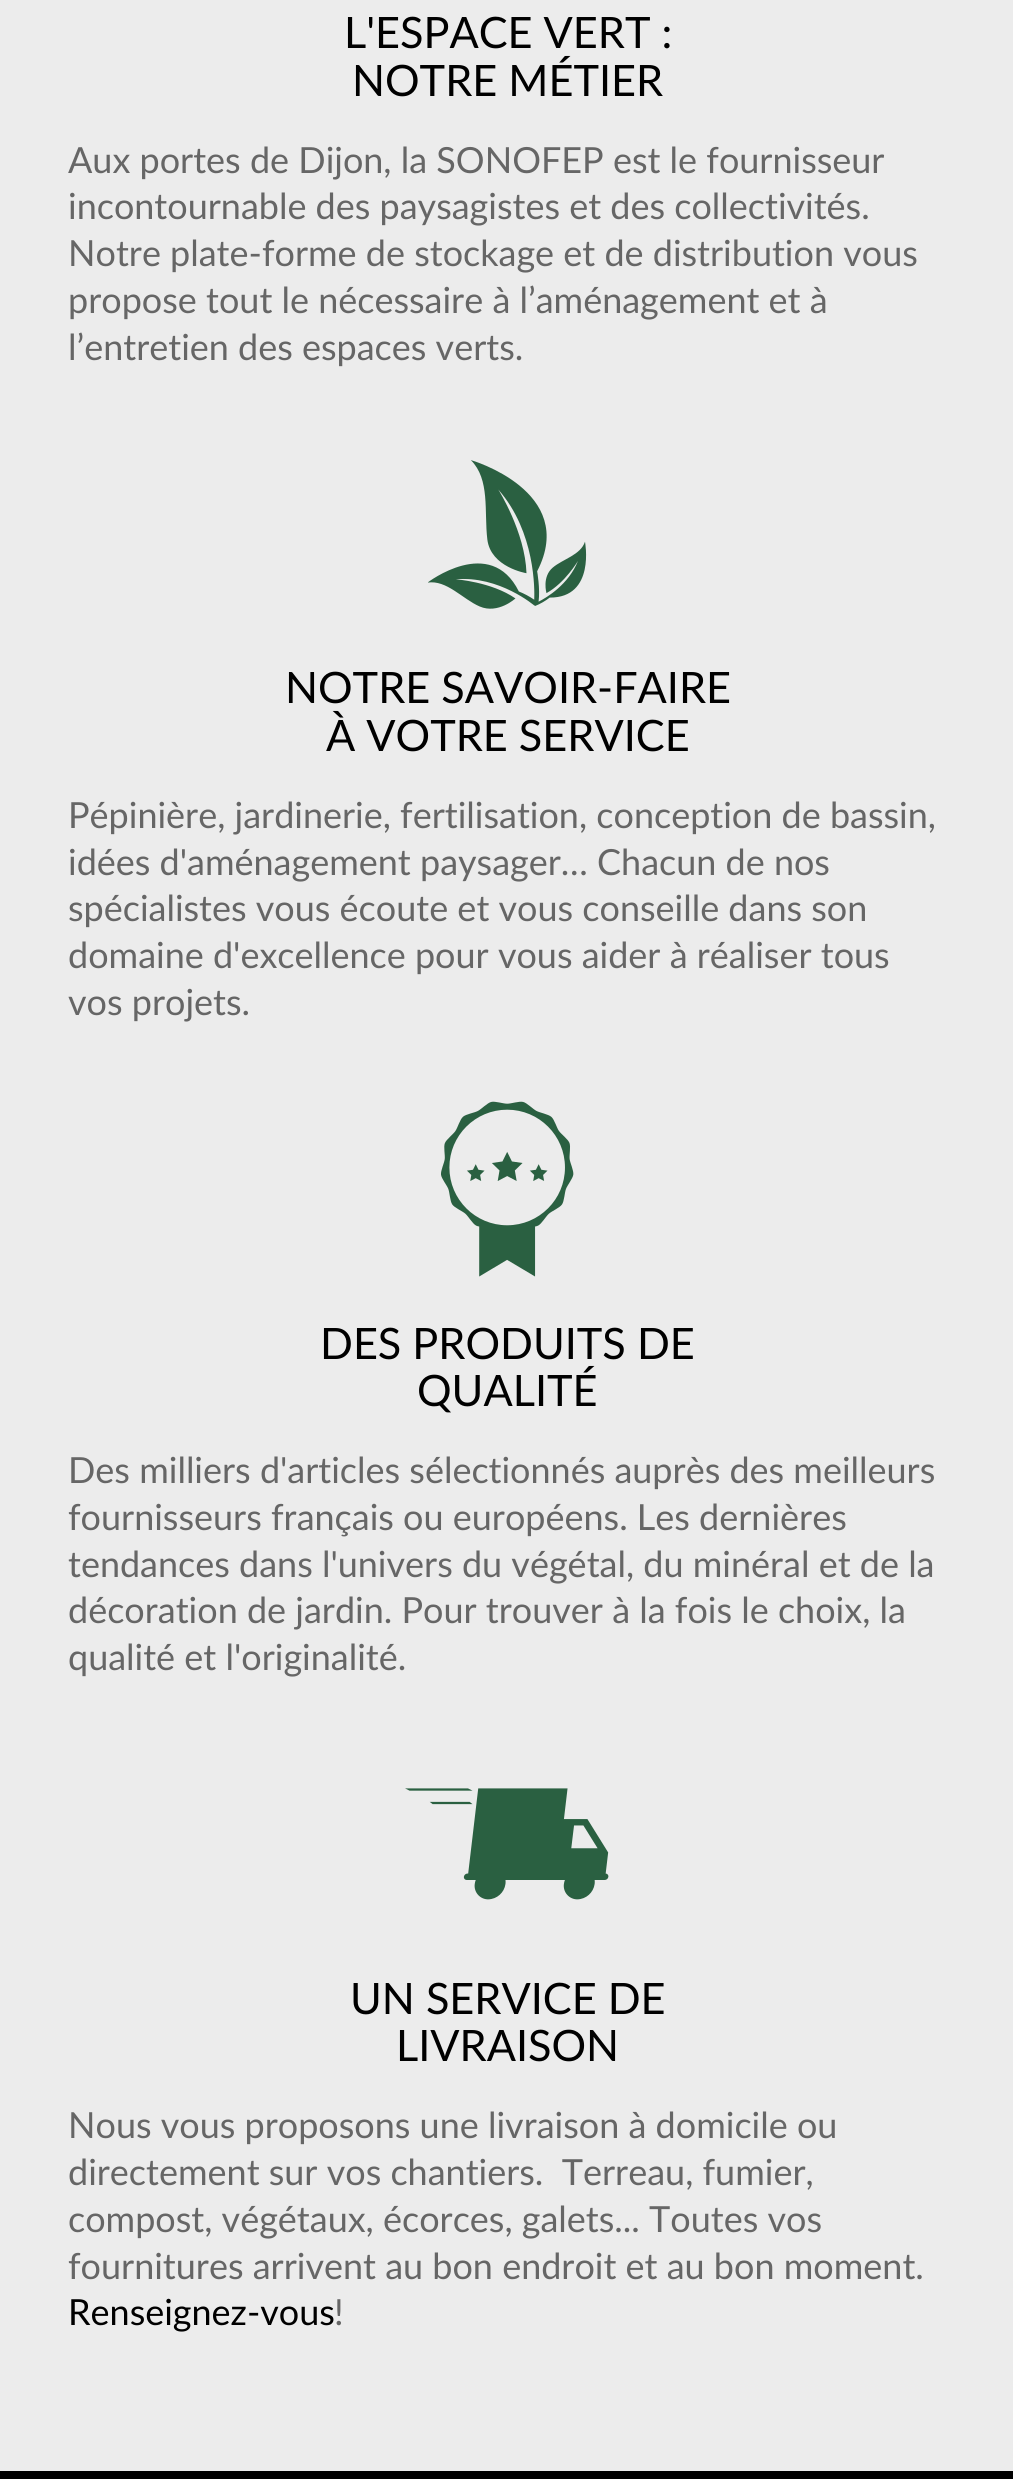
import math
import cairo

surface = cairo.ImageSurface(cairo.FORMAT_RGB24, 1013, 2479)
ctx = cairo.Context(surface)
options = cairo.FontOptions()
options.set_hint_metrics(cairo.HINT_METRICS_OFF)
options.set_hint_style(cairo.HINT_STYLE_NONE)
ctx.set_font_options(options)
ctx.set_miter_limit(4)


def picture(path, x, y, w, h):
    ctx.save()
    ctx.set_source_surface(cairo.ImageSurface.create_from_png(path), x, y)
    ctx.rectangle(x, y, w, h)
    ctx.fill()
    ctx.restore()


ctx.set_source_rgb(0.925, 0.925, 0.925)
ctx.paint()
ctx.select_font_face("Lato")
ctx.set_font_size(43.25)
ctx.set_source_rgb(0, 0, 0)
ctx.move_to(344, 48)
ctx.show_text("L'ESPACE VERT :")
ctx.move_to(352, 96)
ctx.show_text("NOTRE MÉTIER")
ctx.set_font_size(36)
ctx.set_source_rgb(0.4, 0.4, 0.4)
ctx.move_to(68, 173)
ctx.show_text("Aux portes de Dijon, la SONOFEP est le fournisseur")
ctx.move_to(68, 219)
ctx.show_text("incontournable des paysagistes et des collectivités.")
ctx.move_to(68, 266)
ctx.show_text("Notre plate-forme de stockage et de distribution vous")
ctx.move_to(68, 313)
ctx.show_text("propose tout le nécessaire à l’aménagement et à")
ctx.move_to(68, 360)
ctx.show_text("l’entretien des espaces verts.")
picture("img1.png", 428, 460, 159, 149)
ctx.set_font_size(43.25)
ctx.set_source_rgb(0, 0, 0)
ctx.move_to(285, 703)
ctx.show_text("NOTRE SAVOIR-FAIRE")
ctx.move_to(326, 751)
ctx.show_text("À VOTRE SERVICE")
ctx.set_font_size(36)
ctx.set_source_rgb(0.4, 0.4, 0.4)
ctx.move_to(68, 828)
ctx.show_text("Pépinière, jardinerie, fertilisation, conception de bassin,")
ctx.move_to(68, 875)
ctx.show_text("idées d'aménagement paysager… Chacun de nos")
ctx.move_to(68, 921)
ctx.show_text("spécialistes vous écoute et vous conseille dans son")
ctx.move_to(68, 968)
ctx.show_text("domaine d'excellence pour vous aider à réaliser tous")
ctx.move_to(68, 1015)
ctx.show_text("vos projets.")
picture("img2.png", 441, 1101, 133, 176)
ctx.set_font_size(43.25)
ctx.set_source_rgb(0, 0, 0)
ctx.move_to(320, 1359)
ctx.show_text("DES PRODUITS DE")
ctx.move_to(417, 1406)
ctx.show_text("QUALITÉ")
ctx.set_font_size(36)
ctx.set_source_rgb(0.4, 0.4, 0.4)
ctx.move_to(68, 1483)
ctx.show_text("Des milliers d'articles sélectionnés auprès des meilleurs")
ctx.move_to(68, 1530)
ctx.show_text("fournisseurs français ou européens. Les dernières")
ctx.move_to(68, 1577)
ctx.show_text("tendances dans l'univers du végétal, du minéral et de la")
ctx.move_to(68, 1623)
ctx.show_text("décoration de jardin. Pour trouver à la fois le choix, la")
ctx.move_to(68, 1670)
ctx.show_text("qualité et l'originalité.")
picture("img3.png", 405, 1788, 204, 112)
ctx.set_font_size(43.25)
ctx.set_source_rgb(0, 0, 0)
ctx.move_to(350, 2014)
ctx.show_text("UN SERVICE DE")
ctx.move_to(396, 2061)
ctx.show_text("LIVRAISON")
ctx.set_font_size(36)
ctx.set_source_rgb(0.4, 0.4, 0.4)
ctx.move_to(68, 2138)
ctx.show_text("Nous vous proposons une livraison à domicile ou")
ctx.move_to(68, 2185)
ctx.show_text("directement sur vos chantiers.  Terreau, fumier,")
ctx.move_to(68, 2232)
ctx.show_text("compost, végétaux, écorces, galets... Toutes vos")
ctx.move_to(68, 2279)
ctx.show_text("fournitures arrivent au bon endroit et au bon moment.")
ctx.set_source_rgb(0, 0, 0)
ctx.move_to(68, 2325)
ctx.show_text("Renseignez-vous")
ctx.set_source_rgb(0.4, 0.4, 0.4)
ctx.move_to(334, 2325)
ctx.show_text("!")
ctx.set_source_rgb(0, 0, 0)
ctx.rectangle(0, 2471, 1013, 8)
ctx.fill()
surface.write_to_png("page.png")
